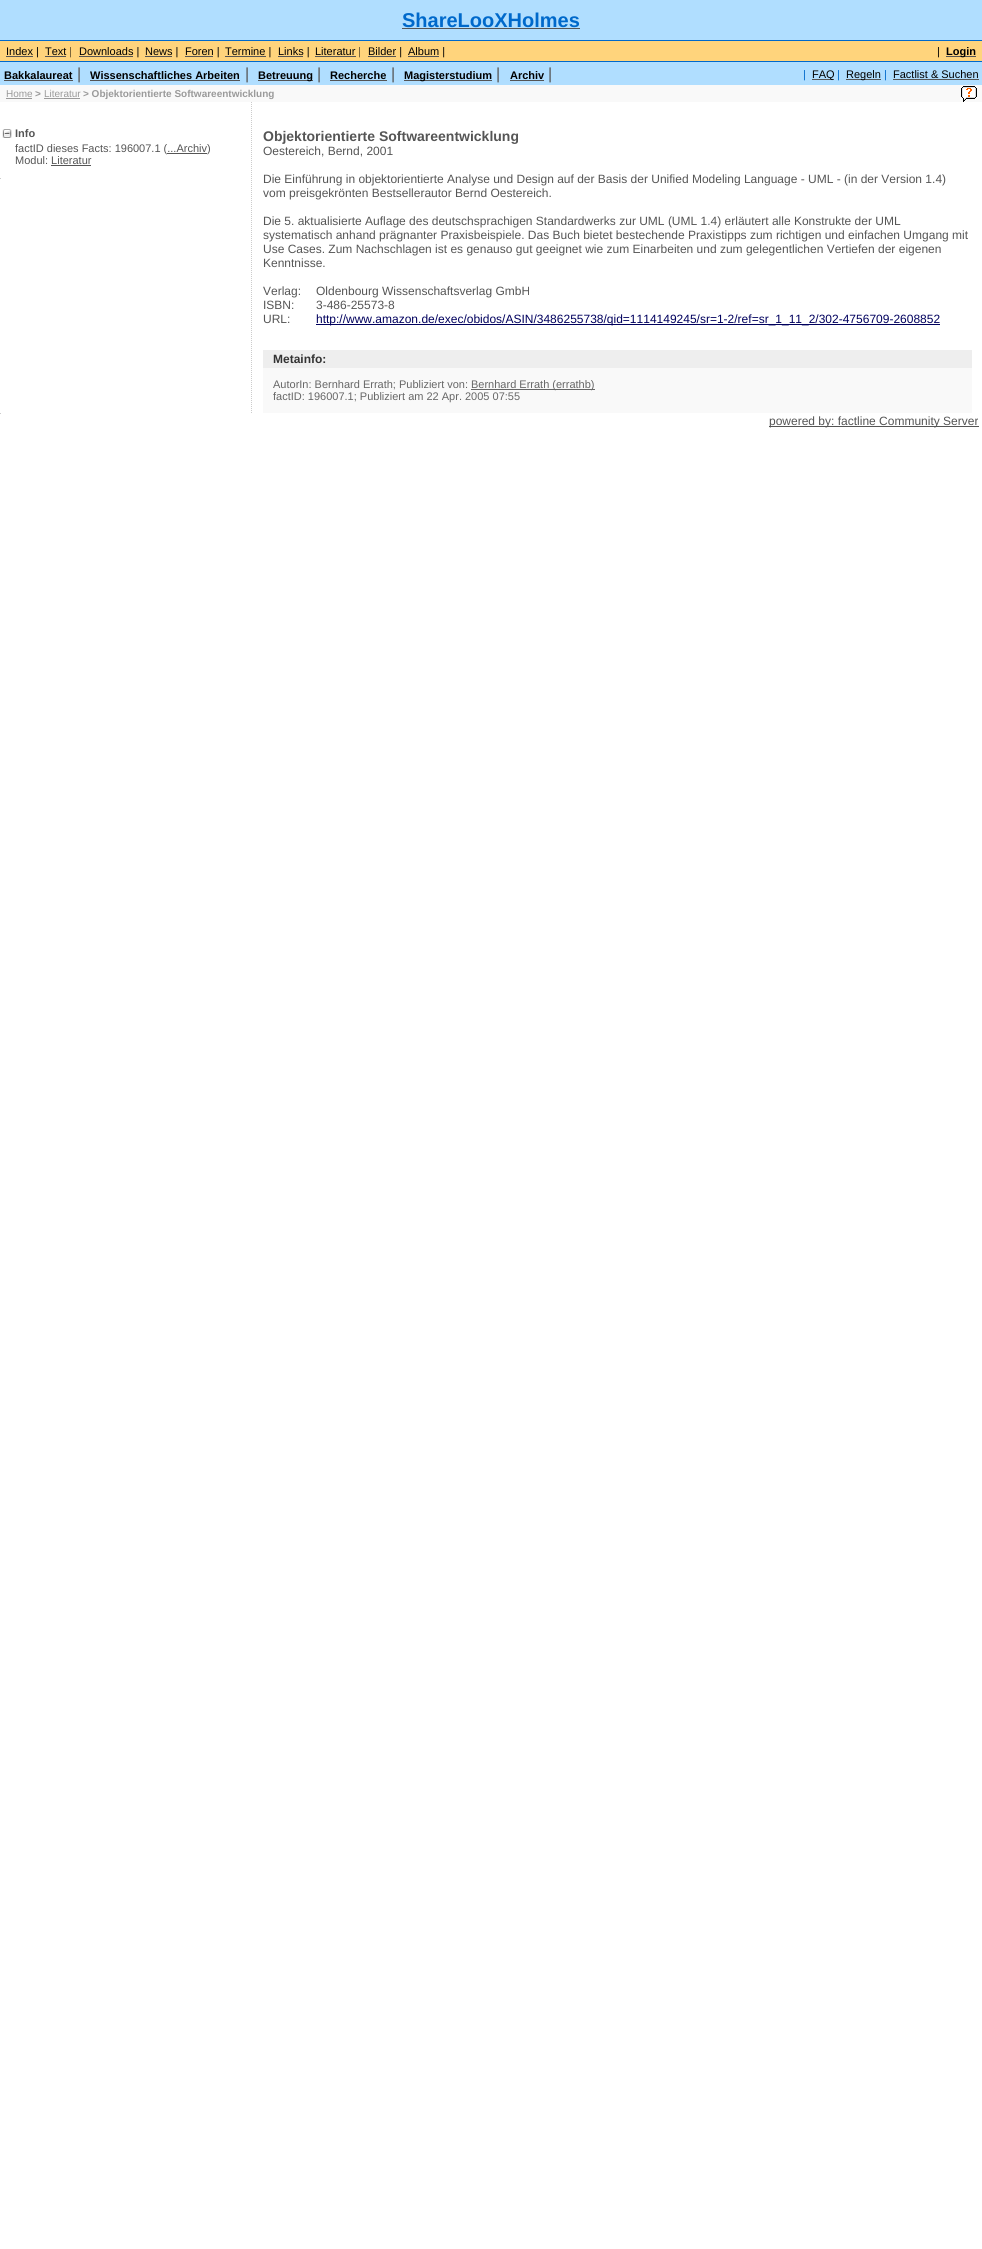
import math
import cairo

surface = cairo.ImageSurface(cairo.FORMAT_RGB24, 982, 2249)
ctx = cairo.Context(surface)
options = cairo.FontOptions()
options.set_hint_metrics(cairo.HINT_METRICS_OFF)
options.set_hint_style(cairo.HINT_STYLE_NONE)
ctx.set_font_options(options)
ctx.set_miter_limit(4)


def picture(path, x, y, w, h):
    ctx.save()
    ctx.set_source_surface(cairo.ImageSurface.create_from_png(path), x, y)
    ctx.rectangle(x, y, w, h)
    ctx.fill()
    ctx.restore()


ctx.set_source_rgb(1, 1, 1)
ctx.paint()
ctx.set_source_rgb(0.69, 0.871, 1)
ctx.rectangle(0, 0, 982, 85)
ctx.fill()
ctx.select_font_face("Liberation Sans", cairo.FONT_SLANT_NORMAL, cairo.FONT_WEIGHT_BOLD)
ctx.set_font_size(20)
ctx.set_source_rgb(0, 0.412, 0.796)
ctx.move_to(402, 27)
ctx.show_text("ShareLooXHolmes")
ctx.set_source_rgb(0.333, 0.333, 0.333)
ctx.rectangle(402, 28, 178, 1)
ctx.fill()
ctx.set_source_rgb(0, 0.412, 0.796)
ctx.rectangle(0, 40, 982, 1)
ctx.fill()
ctx.set_source_rgb(1, 0.831, 0.486)
ctx.rectangle(0, 41, 982, 20)
ctx.fill()
ctx.set_source_rgb(0.333, 0.333, 0.333)
ctx.rectangle(6, 56, 27, 1)
ctx.fill()
ctx.select_font_face("Liberation Sans")
ctx.set_font_size(11)
ctx.set_source_rgb(0, 0, 0)
ctx.move_to(6, 55)
ctx.show_text("Index |")
ctx.set_source_rgb(0.333, 0.333, 0.333)
ctx.rectangle(45, 56, 21, 1)
ctx.fill()
ctx.set_source_rgb(0, 0, 0)
ctx.move_to(45, 55)
ctx.show_text("Text |")
ctx.set_source_rgb(0.333, 0.333, 0.333)
ctx.rectangle(79, 56, 54, 1)
ctx.fill()
ctx.set_source_rgb(0, 0, 0)
ctx.move_to(79, 55)
ctx.show_text("Downloads |")
ctx.set_source_rgb(0.333, 0.333, 0.333)
ctx.rectangle(145, 56, 27, 1)
ctx.fill()
ctx.set_source_rgb(0, 0, 0)
ctx.move_to(145, 55)
ctx.show_text("News |")
ctx.set_source_rgb(0.333, 0.333, 0.333)
ctx.rectangle(185, 56, 28, 1)
ctx.fill()
ctx.set_source_rgb(0, 0, 0)
ctx.move_to(185, 55)
ctx.show_text("Foren |")
ctx.set_source_rgb(0.333, 0.333, 0.333)
ctx.rectangle(225, 56, 41, 1)
ctx.fill()
ctx.set_source_rgb(0, 0, 0)
ctx.move_to(225, 55)
ctx.show_text("Termine |")
ctx.set_source_rgb(0.333, 0.333, 0.333)
ctx.rectangle(278, 56, 25, 1)
ctx.fill()
ctx.set_source_rgb(0, 0, 0)
ctx.move_to(278, 55)
ctx.show_text("Links |")
ctx.set_source_rgb(0.333, 0.333, 0.333)
ctx.rectangle(315, 56, 41, 1)
ctx.fill()
ctx.set_source_rgb(0, 0, 0)
ctx.move_to(315, 55)
ctx.show_text("Literatur |")
ctx.set_source_rgb(0.333, 0.333, 0.333)
ctx.rectangle(368, 56, 28, 1)
ctx.fill()
ctx.set_source_rgb(0, 0, 0)
ctx.move_to(368, 55)
ctx.show_text("Bilder |")
ctx.set_source_rgb(0.333, 0.333, 0.333)
ctx.rectangle(408, 56, 31, 1)
ctx.fill()
ctx.set_source_rgb(0, 0, 0)
ctx.move_to(408, 55)
ctx.show_text("Album |")
ctx.move_to(937, 55)
ctx.show_text("|")
ctx.set_source_rgb(0.333, 0.333, 0.333)
ctx.rectangle(946, 56, 30, 1)
ctx.fill()
ctx.select_font_face("Liberation Sans", cairo.FONT_SLANT_NORMAL, cairo.FONT_WEIGHT_BOLD)
ctx.set_source_rgb(0, 0, 0)
ctx.move_to(946, 55)
ctx.show_text("Login")
ctx.set_source_rgb(0, 0.412, 0.796)
ctx.rectangle(0, 61, 982, 1)
ctx.fill()
ctx.set_source_rgb(0, 0, 0)
ctx.move_to(4, 79)
ctx.show_text("Bakkalaureat")
ctx.set_source_rgb(0.333, 0.333, 0.333)
ctx.rectangle(4, 80, 69, 1)
ctx.fill()
ctx.select_font_face("Liberation Sans")
ctx.set_font_size(16)
ctx.move_to(77, 79)
ctx.show_text("|")
ctx.select_font_face("Liberation Sans", cairo.FONT_SLANT_NORMAL, cairo.FONT_WEIGHT_BOLD)
ctx.set_font_size(11)
ctx.set_source_rgb(0, 0, 0)
ctx.move_to(90, 79)
ctx.show_text("Wissenschaftliches Arbeiten")
ctx.set_source_rgb(0.333, 0.333, 0.333)
ctx.rectangle(90, 80, 150, 1)
ctx.fill()
ctx.select_font_face("Liberation Sans")
ctx.set_font_size(16)
ctx.move_to(245, 79)
ctx.show_text("|")
ctx.rectangle(258, 80, 55, 1)
ctx.fill()
ctx.select_font_face("Liberation Sans", cairo.FONT_SLANT_NORMAL, cairo.FONT_WEIGHT_BOLD)
ctx.set_font_size(11)
ctx.set_source_rgb(0, 0, 0)
ctx.move_to(258, 79)
ctx.show_text("Betreuung")
ctx.select_font_face("Liberation Sans")
ctx.set_font_size(16)
ctx.set_source_rgb(0.333, 0.333, 0.333)
ctx.move_to(317, 79)
ctx.show_text("|")
ctx.select_font_face("Liberation Sans", cairo.FONT_SLANT_NORMAL, cairo.FONT_WEIGHT_BOLD)
ctx.set_font_size(11)
ctx.set_source_rgb(0, 0, 0)
ctx.move_to(330, 79)
ctx.show_text("Recherche")
ctx.set_source_rgb(0.333, 0.333, 0.333)
ctx.rectangle(330, 80, 57, 1)
ctx.fill()
ctx.select_font_face("Liberation Sans")
ctx.set_font_size(16)
ctx.move_to(391, 79)
ctx.show_text("|")
ctx.rectangle(404, 80, 88, 1)
ctx.fill()
ctx.select_font_face("Liberation Sans", cairo.FONT_SLANT_NORMAL, cairo.FONT_WEIGHT_BOLD)
ctx.set_font_size(11)
ctx.set_source_rgb(0, 0, 0)
ctx.move_to(404, 79)
ctx.show_text("Magisterstudium")
ctx.select_font_face("Liberation Sans")
ctx.set_font_size(16)
ctx.set_source_rgb(0.333, 0.333, 0.333)
ctx.move_to(496, 79)
ctx.show_text("|")
ctx.select_font_face("Liberation Sans", cairo.FONT_SLANT_NORMAL, cairo.FONT_WEIGHT_BOLD)
ctx.set_font_size(11)
ctx.set_source_rgb(0, 0, 0)
ctx.move_to(510, 79)
ctx.show_text("Archiv")
ctx.set_source_rgb(0.333, 0.333, 0.333)
ctx.rectangle(510, 80, 34, 1)
ctx.fill()
ctx.select_font_face("Liberation Sans")
ctx.set_font_size(16)
ctx.move_to(548, 79)
ctx.show_text("|")
ctx.set_font_size(11)
ctx.set_source_rgb(0, 0.412, 0.796)
ctx.move_to(803, 78)
ctx.show_text("|")
ctx.set_source_rgb(0.333, 0.333, 0.333)
ctx.rectangle(812, 79, 22, 1)
ctx.fill()
ctx.set_source_rgb(0, 0, 0)
ctx.move_to(812, 78)
ctx.show_text("FAQ")
ctx.set_source_rgb(0, 0.412, 0.796)
ctx.move_to(837, 78)
ctx.show_text("|")
ctx.set_source_rgb(0.333, 0.333, 0.333)
ctx.rectangle(846, 79, 35, 1)
ctx.fill()
ctx.set_source_rgb(0, 0, 0)
ctx.move_to(846, 78)
ctx.show_text("Regeln")
ctx.set_source_rgb(0, 0.412, 0.796)
ctx.move_to(884, 78)
ctx.show_text("|")
ctx.set_source_rgb(0, 0, 0)
ctx.move_to(893, 78)
ctx.show_text("Factlist & Suchen")
ctx.set_source_rgb(0.333, 0.333, 0.333)
ctx.rectangle(893, 79, 86, 1)
ctx.fill()
ctx.set_source_rgb(0.976, 0.976, 0.976)
ctx.rectangle(0, 85, 982, 17)
ctx.fill()
ctx.set_font_size(10)
ctx.set_source_rgb(0.604, 0.604, 0.604)
ctx.move_to(6, 97)
ctx.show_text("Home")
ctx.rectangle(6, 98, 26, 1)
ctx.fill()
ctx.select_font_face("Liberation Sans", cairo.FONT_SLANT_NORMAL, cairo.FONT_WEIGHT_BOLD)
ctx.move_to(35, 97)
ctx.show_text(">")
ctx.select_font_face("Liberation Sans")
ctx.move_to(44, 97)
ctx.show_text("Literatur")
ctx.rectangle(44, 98, 36, 1)
ctx.fill()
ctx.select_font_face("Liberation Sans", cairo.FONT_SLANT_NORMAL, cairo.FONT_WEIGHT_BOLD)
ctx.move_to(83, 97)
ctx.show_text("> Objektorientierte Softwareentwicklung")
picture("img1.png", 961, 86, 16, 16)
picture("img2.png", 2, 129, 10, 9)
ctx.set_font_size(11)
ctx.set_source_rgb(0.333, 0.333, 0.333)
ctx.move_to(15, 137)
ctx.show_text("Info")
ctx.select_font_face("Liberation Sans")
ctx.move_to(15, 152)
ctx.show_text("factID dieses Facts: 196007.1 (...Archiv)")
ctx.rectangle(167, 153, 40, 1)
ctx.fill()
ctx.move_to(15, 164)
ctx.show_text("Modul: Literatur")
ctx.rectangle(51, 165, 40, 1)
ctx.fill()
ctx.set_source_rgb(0.8, 0.8, 0.8)
ctx.rectangle(0, 178, 1, 1)
ctx.fill()
ctx.new_path()
ctx.move_to(251.5, 102)
ctx.line_to(251.5, 413)
ctx.set_line_width(1)
ctx.set_dash([1, 1])
ctx.stroke()
ctx.select_font_face("Liberation Sans", cairo.FONT_SLANT_NORMAL, cairo.FONT_WEIGHT_BOLD)
ctx.set_font_size(14)
ctx.set_source_rgb(0.333, 0.333, 0.333)
ctx.move_to(263, 141)
ctx.show_text("Objektorientierte Softwareentwicklung")
ctx.select_font_face("Liberation Sans")
ctx.set_font_size(12)
ctx.move_to(263, 155)
ctx.show_text("Oestereich, Bernd, 2001")
ctx.move_to(263, 183)
ctx.show_text("Die Einführung in objektorientierte Analyse und Design auf der Basis der Unified Modeling Language - UML - (in der Version 1.4)")
ctx.move_to(263, 197)
ctx.show_text("vom preisgekrönten Bestsellerautor Bernd Oestereich.")
ctx.move_to(263, 225)
ctx.show_text("Die 5. aktualisierte Auflage des deutschsprachigen Standardwerks zur UML (UML 1.4) erläutert alle Konstrukte der UML")
ctx.move_to(263, 239)
ctx.show_text("systematisch anhand prägnanter Praxisbeispiele. Das Buch bietet bestechende Praxistipps zum richtigen und einfachen Umgang mit")
ctx.move_to(263, 253)
ctx.show_text("Use Cases. Zum Nachschlagen ist es genauso gut geeignet wie zum Einarbeiten und zum gelegentlichen Vertiefen der eigenen")
ctx.move_to(263, 267)
ctx.show_text("Kenntnisse.")
ctx.move_to(263, 295)
ctx.show_text("Verlag:")
ctx.move_to(316, 295)
ctx.show_text("Oldenbourg Wissenschaftsverlag GmbH")
ctx.move_to(263, 309)
ctx.show_text("ISBN:")
ctx.move_to(316, 309)
ctx.show_text("3-486-25573-8")
ctx.move_to(263, 323)
ctx.show_text("URL:")
ctx.set_source_rgb(0, 0, 0.365)
ctx.rectangle(316, 324, 624, 1)
ctx.fill()
ctx.move_to(316, 323)
ctx.show_text("http://www.amazon.de/exec/obidos/ASIN/3486255738/qid=1114149245/sr=1-2/ref=sr_1_11_2/302-4756709-2608852")
ctx.set_source_rgb(0.973, 0.973, 0.973)
ctx.rectangle(263, 368, 709, 45)
ctx.fill()
ctx.set_source_rgb(0.933, 0.933, 0.933)
ctx.rectangle(263, 350, 709, 18)
ctx.fill()
ctx.select_font_face("Liberation Sans", cairo.FONT_SLANT_NORMAL, cairo.FONT_WEIGHT_BOLD)
ctx.set_source_rgb(0.2, 0.2, 0.2)
ctx.move_to(273, 363)
ctx.show_text("Metainfo:")
ctx.select_font_face("Liberation Sans")
ctx.set_font_size(11)
ctx.set_source_rgb(0.4, 0.4, 0.4)
ctx.move_to(273, 388)
ctx.show_text("AutorIn: Bernhard Errath; Publiziert von:")
ctx.rectangle(471, 389, 124, 1)
ctx.fill()
ctx.move_to(471, 388)
ctx.show_text("Bernhard Errath (errathb)")
ctx.move_to(273, 400)
ctx.show_text("factID: 196007.1; Publiziert am 22 Apr. 2005 07:55")
ctx.set_source_rgb(0.8, 0.8, 0.8)
ctx.rectangle(0, 413, 1, 1)
ctx.fill()
ctx.set_source_rgb(0.333, 0.333, 0.333)
ctx.rectangle(769, 426, 210, 1)
ctx.fill()
ctx.set_font_size(12)
ctx.move_to(769, 425)
ctx.show_text("powered by: factline Community Server")
surface.write_to_png("page.png")
